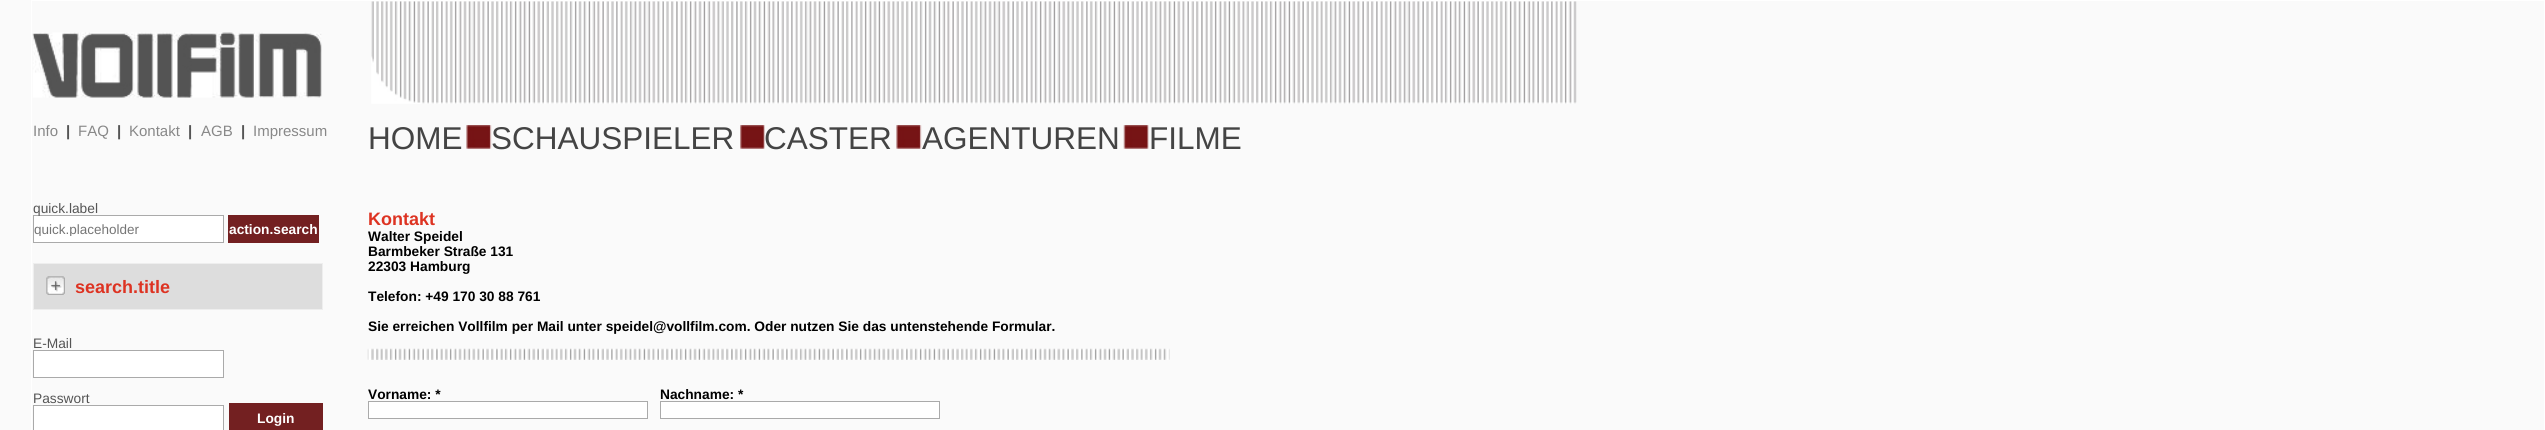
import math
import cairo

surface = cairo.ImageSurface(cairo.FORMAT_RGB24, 2545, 430)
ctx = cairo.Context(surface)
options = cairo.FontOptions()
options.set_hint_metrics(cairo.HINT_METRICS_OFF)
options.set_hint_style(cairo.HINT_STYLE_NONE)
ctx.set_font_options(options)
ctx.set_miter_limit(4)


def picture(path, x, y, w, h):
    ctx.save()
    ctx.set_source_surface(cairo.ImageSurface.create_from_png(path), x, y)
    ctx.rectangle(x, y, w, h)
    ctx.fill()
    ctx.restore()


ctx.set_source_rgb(0.98, 0.98, 0.98)
ctx.paint()
ctx.rectangle(31.5, 0.5, 2513, 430)
ctx.set_source_rgb(1, 1, 1)
ctx.set_line_width(1)
ctx.stroke()
picture("img1.png", 32, 32, 290, 66)
ctx.select_font_face("Liberation Sans")
ctx.set_font_size(15)
ctx.set_source_rgb(0.533, 0.533, 0.533)
ctx.move_to(33, 136)
ctx.show_text("Info")
ctx.select_font_face("Liberation Sans", cairo.FONT_SLANT_NORMAL, cairo.FONT_WEIGHT_BOLD)
ctx.set_source_rgb(0.333, 0.333, 0.333)
ctx.move_to(66, 136)
ctx.show_text("|")
ctx.select_font_face("Liberation Sans")
ctx.set_source_rgb(0.533, 0.533, 0.533)
ctx.move_to(78, 136)
ctx.show_text("FAQ")
ctx.select_font_face("Liberation Sans", cairo.FONT_SLANT_NORMAL, cairo.FONT_WEIGHT_BOLD)
ctx.set_source_rgb(0.333, 0.333, 0.333)
ctx.move_to(117, 136)
ctx.show_text("|")
ctx.select_font_face("Liberation Sans")
ctx.set_source_rgb(0.533, 0.533, 0.533)
ctx.move_to(129, 136)
ctx.show_text("Kontakt")
ctx.select_font_face("Liberation Sans", cairo.FONT_SLANT_NORMAL, cairo.FONT_WEIGHT_BOLD)
ctx.set_source_rgb(0.333, 0.333, 0.333)
ctx.move_to(188, 136)
ctx.show_text("|")
ctx.select_font_face("Liberation Sans")
ctx.set_source_rgb(0.533, 0.533, 0.533)
ctx.move_to(201, 136)
ctx.show_text("AGB")
ctx.select_font_face("Liberation Sans", cairo.FONT_SLANT_NORMAL, cairo.FONT_WEIGHT_BOLD)
ctx.set_source_rgb(0.333, 0.333, 0.333)
ctx.move_to(241, 136)
ctx.show_text("|")
ctx.select_font_face("Liberation Sans")
ctx.set_source_rgb(0.533, 0.533, 0.533)
ctx.move_to(253, 136)
ctx.show_text("Impressum")
picture("img2.png", 371, 1, 1206, 103)
ctx.set_font_size(31.5)
ctx.set_source_rgb(0.267, 0.267, 0.267)
ctx.move_to(368, 149)
ctx.show_text("HOME")
picture("img3.png", 466, 125, 26, 24)
ctx.move_to(491, 149)
ctx.show_text("SCHAUSPIELER")
picture("img4.png", 740, 125, 25, 24)
ctx.move_to(764, 149)
ctx.show_text("CASTER")
picture("img3.png", 896, 125, 26, 24)
ctx.move_to(922, 149)
ctx.show_text("AGENTUREN")
picture("img5.png", 1123, 125, 26, 24)
ctx.move_to(1149, 149)
ctx.show_text("FILME")
ctx.set_source_rgb(1, 1, 1)
ctx.rectangle(33.5, 215.5, 190, 27)
ctx.fill_preserve()
ctx.set_source_rgb(0.667, 0.667, 0.667)
ctx.stroke()
ctx.set_font_size(13.75)
ctx.set_source_rgb(0.333, 0.333, 0.333)
ctx.move_to(33, 213)
ctx.show_text("quick.label")
ctx.save()
ctx.rectangle(34, 221, 189, 15)
ctx.clip()
ctx.set_font_size(13.5)
ctx.set_source_rgb(0.459, 0.459, 0.459)
ctx.move_to(34, 234)
ctx.show_text("quick.placeholder")
ctx.restore()
ctx.set_source_rgb(0.451, 0.125, 0.129)
ctx.rectangle(228, 215, 91, 28)
ctx.fill()
ctx.select_font_face("Liberation Sans", cairo.FONT_SLANT_NORMAL, cairo.FONT_WEIGHT_BOLD)
ctx.set_source_rgb(1, 1, 1)
ctx.move_to(229, 234)
ctx.show_text("action.search")
ctx.set_source_rgb(0.867, 0.867, 0.867)
ctx.rectangle(33.5, 263.5, 289, 46)
ctx.fill_preserve()
ctx.set_source_rgb(0.933, 0.933, 0.933)
ctx.stroke()
picture("img6.png", 46, 276, 19, 19)
ctx.set_font_size(18)
ctx.set_source_rgb(0.867, 0.2, 0.133)
ctx.move_to(75, 293)
ctx.show_text("search.title")
ctx.select_font_face("Liberation Sans")
ctx.set_font_size(13.75)
ctx.set_source_rgb(0.333, 0.333, 0.333)
ctx.move_to(33, 348)
ctx.show_text("E-Mail")
ctx.set_source_rgb(1, 1, 1)
ctx.rectangle(33.5, 350.5, 190, 27)
ctx.fill_preserve()
ctx.set_source_rgb(0.667, 0.667, 0.667)
ctx.stroke()
ctx.set_source_rgb(0.333, 0.333, 0.333)
ctx.move_to(33, 403)
ctx.show_text("Passwort")
ctx.set_source_rgb(1, 1, 1)
ctx.rectangle(33.5, 405.5, 190, 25)
ctx.fill_preserve()
ctx.set_source_rgb(0.667, 0.667, 0.667)
ctx.stroke()
ctx.set_source_rgb(0.451, 0.125, 0.129)
ctx.rectangle(229, 403, 94, 27)
ctx.fill()
ctx.select_font_face("Liberation Sans", cairo.FONT_SLANT_NORMAL, cairo.FONT_WEIGHT_BOLD)
ctx.set_source_rgb(1, 1, 1)
ctx.move_to(257, 423)
ctx.show_text("Login")
ctx.set_font_size(18)
ctx.set_source_rgb(0.867, 0.2, 0.133)
ctx.move_to(368, 225)
ctx.show_text("Kontakt")
ctx.set_font_size(13.75)
ctx.set_source_rgb(0, 0, 0)
ctx.move_to(368, 241)
ctx.show_text("Walter Speidel")
ctx.move_to(368, 256)
ctx.show_text("Barmbeker Straße 131")
ctx.move_to(368, 271)
ctx.show_text("22303 Hamburg")
ctx.move_to(368, 301)
ctx.show_text("Telefon: +49 170 30 88 761")
ctx.move_to(368, 331)
ctx.show_text("Sie erreichen Vollfilm per Mail unter speidel@vollfilm.com. Oder nutzen Sie das untenstehende Formular.")
picture("img7.png", 367, 348, 803, 12)
ctx.move_to(368, 399)
ctx.show_text("Vorname: *")
ctx.set_source_rgb(1, 1, 1)
ctx.rectangle(368.5, 401.5, 279, 17)
ctx.fill_preserve()
ctx.set_source_rgb(0.667, 0.667, 0.667)
ctx.stroke()
ctx.set_source_rgb(0, 0, 0)
ctx.move_to(660, 399)
ctx.show_text("Nachname: *")
ctx.set_source_rgb(1, 1, 1)
ctx.rectangle(660.5, 401.5, 279, 17)
ctx.fill_preserve()
ctx.set_source_rgb(0.667, 0.667, 0.667)
ctx.stroke()
surface.write_to_png("page.png")
